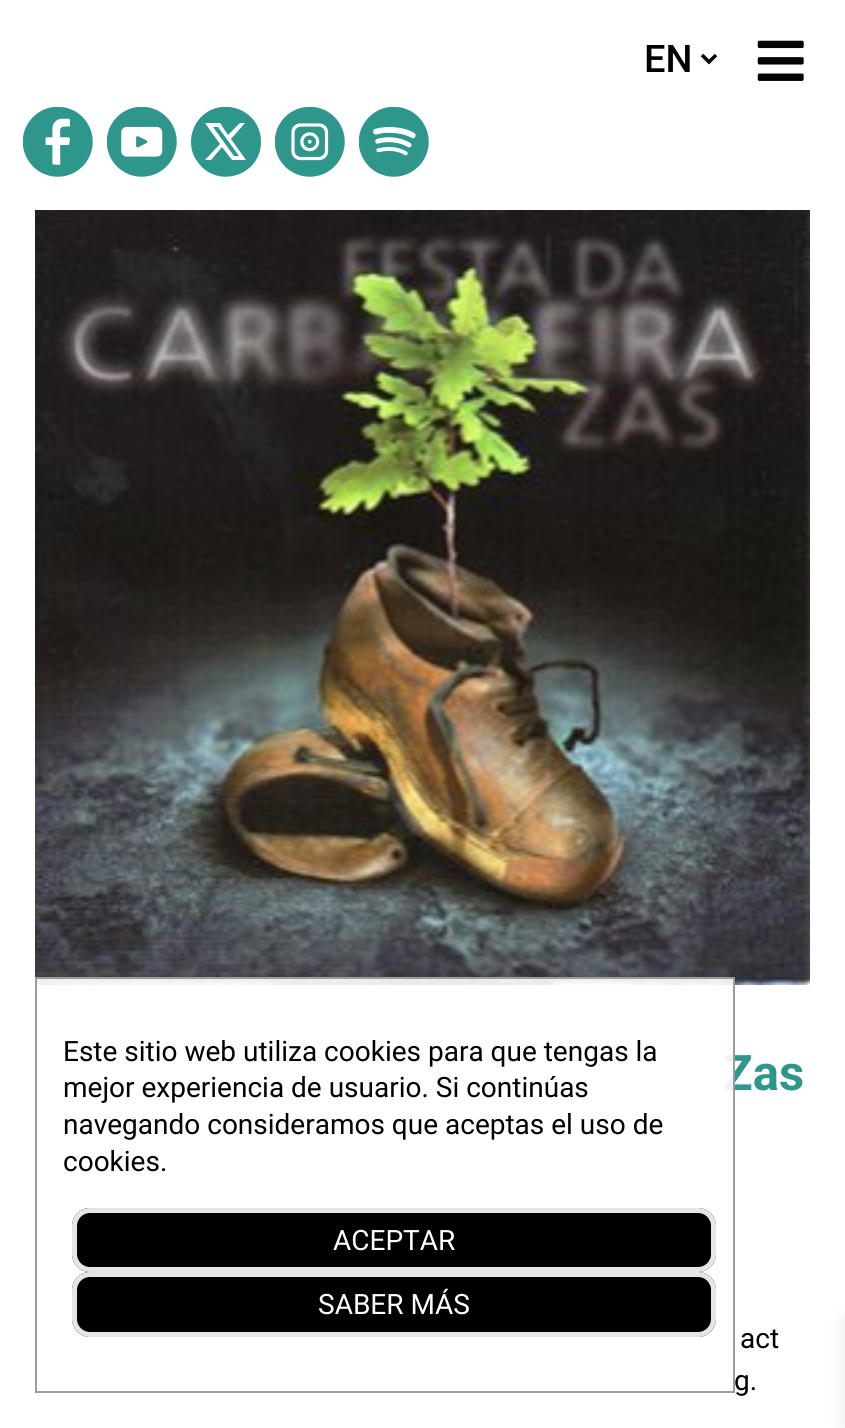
import math
import cairo

surface = cairo.ImageSurface(cairo.FORMAT_RGB24, 845, 1428)
ctx = cairo.Context(surface)
options = cairo.FontOptions()
options.set_hint_metrics(cairo.HINT_METRICS_OFF)
options.set_hint_style(cairo.HINT_STYLE_NONE)
ctx.set_font_options(options)
ctx.set_miter_limit(4)


def round_rect(x, y, w, h, r):
    ctx.new_sub_path()
    for i, (u, v) in enumerate([(x + w - r, y + h - r), (x + r, y + h - r), (x + r, y + r), (x + w - r, y + r)]):
        ctx.arc(u, v, r, i * math.pi / 2, (i + 1) * math.pi / 2)
    ctx.close_path()


def shadow(x, y, w, h, r, blur, alpha):
    ctx.push_group_with_content(cairo.CONTENT_ALPHA)
    ctx.set_operator(cairo.OPERATOR_SOURCE)
    for i in range(15, -16, -2):
        e = blur * i / 6
        if min(w, h) + 2 * e > 0:
            ctx.set_source_rgba(0, 0, 0, alpha * math.erfc((i - 1) / 8.5) / 2)
            round_rect(x - e, y - e, w + 2 * e, h + 2 * e, max(0, min(r + e + blur * .6, min(w, h) / 2 + e)))
            ctx.fill()
    ctx.mask(ctx.pop_group())


def picture(path, x, y, w, h):
    ctx.save()
    ctx.set_source_surface(cairo.ImageSurface.create_from_png(path), x, y)
    ctx.rectangle(x, y, w, h)
    ctx.fill()
    ctx.restore()


ctx.set_source_rgb(1, 1, 1)
ctx.paint()
ctx.new_path()
ctx.move_to(702, 55)
ctx.line_to(709, 62)
ctx.line_to(716, 55)
ctx.set_source_rgb(0, 0, 0)
ctx.set_line_width(3.5)
ctx.stroke()
ctx.select_font_face("Roboto Medium")
ctx.set_font_size(38)
ctx.move_to(644, 72)
ctx.show_text("EN")
picture("img1.png", 757, 40, 47, 41)
picture("img2.png", 23, 107, 70, 70)
picture("img3.png", 107, 107, 70, 70)
ctx.save()
ctx.rectangle(191, 107, 70, 70)
ctx.clip()
ctx.set_source_rgb(0.184, 0.588, 0.545)
ctx.new_path()
ctx.move_to(261, 142)
ctx.curve_to(261, 176, 216, 190, 197, 161)
ctx.curve_to(193, 156, 191, 149, 191, 142)
ctx.curve_to(191, 135, 193, 128, 197, 122)
ctx.curve_to(216, 94, 261, 107, 261, 142)
ctx.fill()
ctx.restore()
picture("img4.png", 275, 107, 70, 70)
picture("img5.png", 359, 107, 70, 70)
ctx.set_source_rgb(1, 1, 1)
ctx.new_path()
ctx.move_to(213, 127)
ctx.line_to(218, 127)
ctx.line_to(239, 156)
ctx.line_to(234, 156)
ctx.close_path()
ctx.move_to(231, 139)
ctx.line_to(245, 123)
ctx.line_to(240, 123)
ctx.line_to(228, 135)
ctx.line_to(220, 123)
ctx.line_to(205, 123)
ctx.line_to(220, 144)
ctx.line_to(205, 160)
ctx.line_to(211, 160)
ctx.line_to(222, 147)
ctx.line_to(232, 160)
ctx.line_to(246, 160)
ctx.line_to(231, 139)
ctx.fill()
picture("img6.png", 35, 210, 775, 775)
ctx.select_font_face("Roboto", cairo.FONT_SLANT_NORMAL, cairo.FONT_WEIGHT_BOLD)
ctx.set_font_size(49)
ctx.set_source_rgb(0.184, 0.588, 0.545)
ctx.move_to(723, 1090)
ctx.show_text("Zas")
ctx.set_source_rgba(1, 1, 1, 0.9)
ctx.rectangle(37, 979, 696, 111)
ctx.fill()
ctx.rectangle(36, 978, 698, 414)
ctx.set_source_rgb(0.612, 0.612, 0.612)
ctx.set_line_width(2)
ctx.stroke()
ctx.select_font_face("Roboto")
ctx.set_font_size(28)
ctx.set_source_rgb(0, 0, 0)
ctx.move_to(63, 1061)
ctx.show_text("Este sitio web utiliza cookies para que tengas la")
ctx.move_to(63, 1097)
ctx.show_text("mejor experiencia de usuario. Si continúas")
ctx.move_to(63, 1134)
ctx.show_text("navegando consideramos que aceptas el uso de")
ctx.move_to(63, 1171)
ctx.show_text("cookies.")
round_rect(72, 1208, 644, 64, 18)
ctx.fill()
round_rect(74.5, 1210.5, 639, 59, 15.5)
ctx.set_source_rgba(1, 1, 1, 0.9)
ctx.set_line_width(5)
ctx.stroke()
ctx.set_source_rgb(1, 1, 1)
ctx.move_to(333, 1250)
ctx.show_text("ACEPTAR")
ctx.set_source_rgb(0, 0, 0)
round_rect(72, 1272, 644, 65, 18)
ctx.fill()
round_rect(74.5, 1274.5, 639, 60, 15.5)
ctx.set_source_rgba(1, 1, 1, 0.9)
ctx.stroke()
ctx.set_source_rgb(1, 1, 1)
ctx.move_to(318, 1314)
ctx.show_text("SABER MÁS")
ctx.set_source_rgb(0, 0, 0)
ctx.move_to(740, 1348)
ctx.show_text("act")
ctx.move_to(734, 1390)
ctx.show_text("g.")
ctx.set_source_rgb(0, 0, 0)
shadow(845, 1320, 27, 106, 0, 9, 0.1)
surface.write_to_png("page.png")
